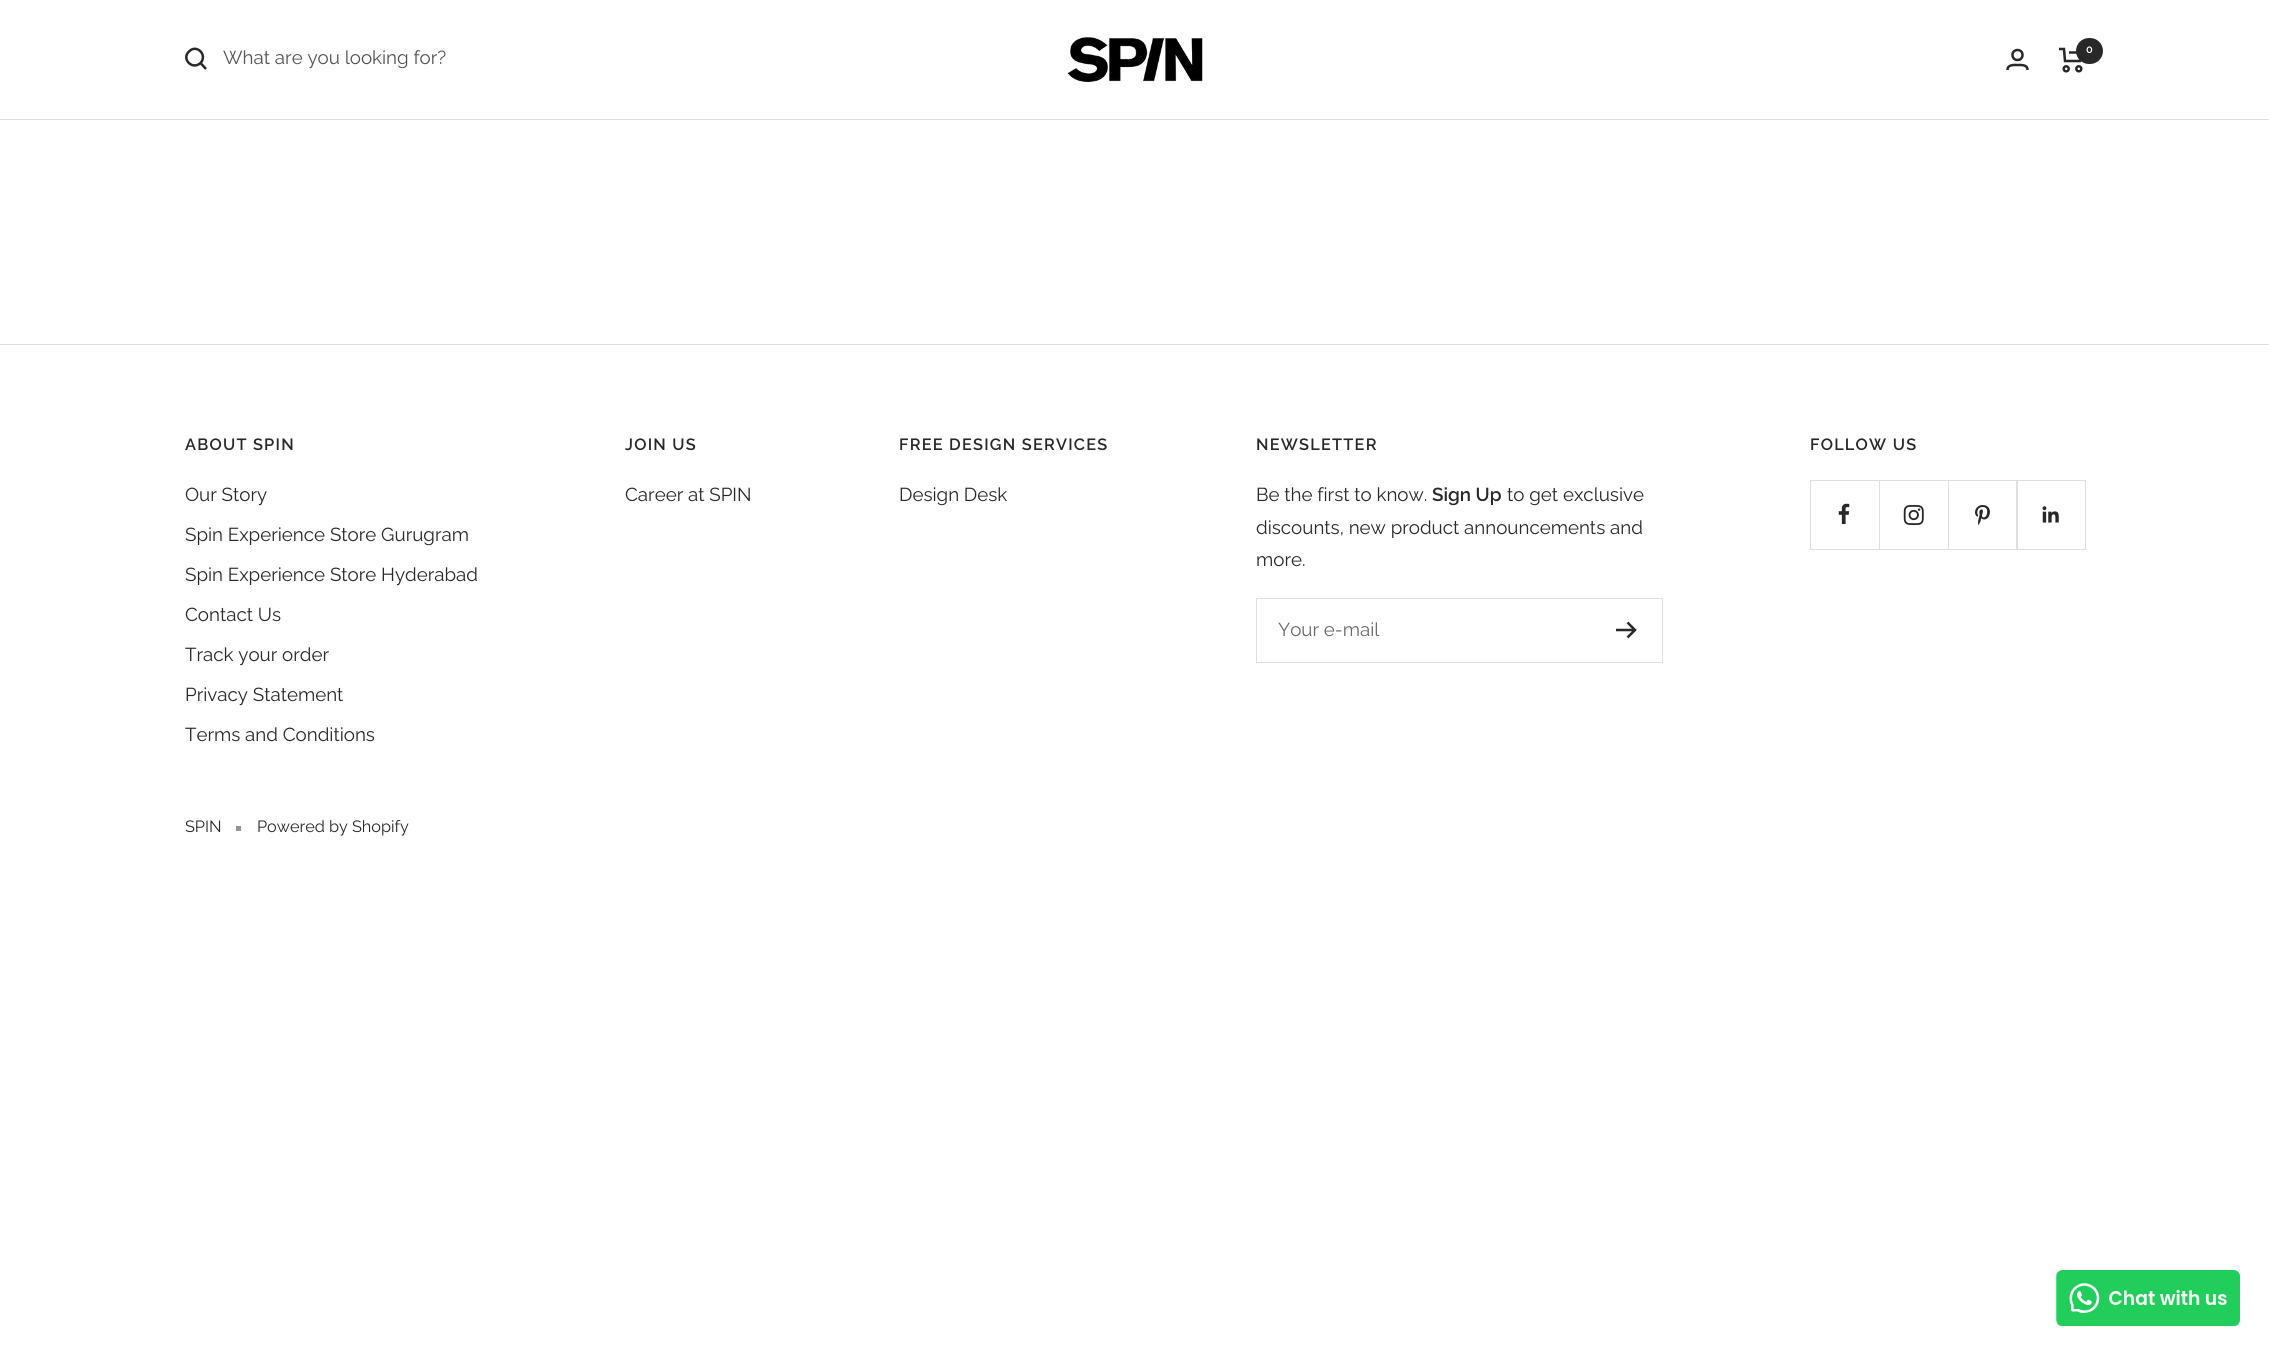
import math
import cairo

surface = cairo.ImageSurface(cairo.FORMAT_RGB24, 2269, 1363)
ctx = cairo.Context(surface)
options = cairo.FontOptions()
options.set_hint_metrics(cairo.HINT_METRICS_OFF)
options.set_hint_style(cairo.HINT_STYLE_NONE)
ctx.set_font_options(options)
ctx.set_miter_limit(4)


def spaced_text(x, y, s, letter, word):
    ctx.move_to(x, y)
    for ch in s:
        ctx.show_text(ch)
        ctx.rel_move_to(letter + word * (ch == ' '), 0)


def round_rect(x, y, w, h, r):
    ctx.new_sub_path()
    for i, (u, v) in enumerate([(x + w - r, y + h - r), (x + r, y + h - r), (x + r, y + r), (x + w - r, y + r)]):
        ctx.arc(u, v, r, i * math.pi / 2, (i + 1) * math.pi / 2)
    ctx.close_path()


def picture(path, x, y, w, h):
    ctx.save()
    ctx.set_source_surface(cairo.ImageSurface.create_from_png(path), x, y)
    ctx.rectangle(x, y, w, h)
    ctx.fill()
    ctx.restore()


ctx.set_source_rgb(1, 1, 1)
ctx.paint()
ctx.set_source_rgb(0.875, 0.875, 0.875)
ctx.rectangle(0, 119, 2269, 1)
ctx.fill()
ctx.new_path()
ctx.move_to(200.5, 63)
ctx.curve_to(208, 55, 196.5, 43.5, 189, 51.5)
ctx.curve_to(181, 59, 192.5, 70.5, 200.5, 63)
ctx.close_path()
ctx.move_to(200.5, 63)
ctx.line_to(206, 69)
ctx.set_source_rgb(0.157, 0.157, 0.157)
ctx.set_line_width(2.5)
ctx.stroke()
ctx.select_font_face("Raleway")
ctx.set_font_size(18.75)
ctx.set_source_rgb(0.325, 0.325, 0.325)
ctx.move_to(223, 64)
ctx.show_text("What are you looking for?")
picture("img1.png", 1067, 37, 136, 45)
ctx.arc(2017.5, 55, 5, 0, 2 * math.pi)
ctx.set_source_rgb(0.157, 0.157, 0.157)
ctx.stroke()
ctx.new_path()
ctx.move_to(2007.5, 70)
ctx.curve_to(2007.5, 64.5, 2013.5, 65, 2017.5, 65)
ctx.curve_to(2021.5, 65, 2027.5, 64.5, 2027.5, 70)
ctx.stroke()
ctx.new_path()
ctx.move_to(2059, 49)
ctx.line_to(2064, 49)
ctx.line_to(2065, 61)
ctx.line_to(2080, 61)
ctx.line_to(2082.5, 52.5)
ctx.line_to(2069, 52.5)
ctx.stroke()
ctx.arc(2066.2, 68.8, 2.5, 0, 2 * math.pi)
ctx.stroke()
ctx.arc(2078.8, 68.8, 2.5, 0, 2 * math.pi)
ctx.stroke()
round_rect(2076, 38, 27, 26, 13)
ctx.fill()
ctx.select_font_face("Raleway SemiBold")
ctx.set_font_size(11)
ctx.set_source_rgb(1, 1, 1)
ctx.move_to(2086, 53)
ctx.show_text("0")
ctx.set_source_rgb(0.875, 0.875, 0.875)
ctx.rectangle(0, 344, 2269, 1)
ctx.fill()
ctx.set_font_size(16.25)
ctx.set_source_rgb(0.157, 0.157, 0.157)
spaced_text(185, 450, "ABOUT SPIN", 1.25, 0)
ctx.select_font_face("Raleway")
ctx.set_font_size(18.75)
ctx.move_to(185, 501)
ctx.show_text("Our Story")
ctx.move_to(185, 541)
ctx.show_text("Spin Experience Store Gurugram")
ctx.move_to(185, 581)
ctx.show_text("Spin Experience Store Hyderabad")
ctx.move_to(185, 621)
ctx.show_text("Contact Us")
ctx.move_to(185, 661)
ctx.show_text("Track your order")
ctx.move_to(185, 701)
ctx.show_text("Privacy Statement")
ctx.move_to(185, 741)
ctx.show_text("Terms and Conditions")
ctx.select_font_face("Raleway SemiBold")
ctx.set_font_size(16.25)
spaced_text(625, 450, "JOIN US", 1.25, 0)
ctx.select_font_face("Raleway")
ctx.set_font_size(18.75)
ctx.move_to(625, 501)
ctx.show_text("Career at SPIN")
ctx.select_font_face("Raleway SemiBold")
ctx.set_font_size(16.25)
spaced_text(899, 450, "FREE DESIGN SERVICES", 1.25, 0)
ctx.select_font_face("Raleway")
ctx.set_font_size(18.75)
ctx.move_to(899, 501)
ctx.show_text("Design Desk")
ctx.select_font_face("Raleway SemiBold")
ctx.set_font_size(16.25)
spaced_text(1256, 450, "NEWSLETTER", 1.25, 0)
ctx.select_font_face("Raleway")
ctx.set_font_size(18.75)
ctx.move_to(1256, 501)
ctx.show_text("Be the first to know.")
ctx.select_font_face("Raleway SemiBold")
ctx.move_to(1432, 501)
ctx.show_text("Sign Up")
ctx.select_font_face("Raleway")
ctx.move_to(1507, 501)
ctx.show_text("to get exclusive")
ctx.move_to(1256, 534)
ctx.show_text("discounts, new product announcements and")
ctx.move_to(1256, 566)
ctx.show_text("more.")
ctx.rectangle(1256.5, 598.5, 406, 64)
ctx.set_source_rgb(0.875, 0.875, 0.875)
ctx.set_line_width(1)
ctx.stroke()
ctx.set_source_rgb(0.412, 0.412, 0.412)
ctx.move_to(1278, 636)
ctx.show_text("Your e-mail")
ctx.new_path()
ctx.move_to(1616, 630)
ctx.line_to(1635, 630)
ctx.move_to(1627.5, 622.5)
ctx.line_to(1635, 630)
ctx.line_to(1627.5, 637.5)
ctx.set_source_rgb(0.157, 0.157, 0.157)
ctx.set_line_width(2.5)
ctx.stroke()
ctx.select_font_face("Raleway SemiBold")
ctx.set_font_size(16.25)
spaced_text(1810, 450, "FOLLOW US", 1.25, 0)
ctx.set_source_rgb(0.875, 0.875, 0.875)
ctx.new_path()
ctx.move_to(1811, 549)
ctx.line_to(1811, 550)
ctx.line_to(1880, 550)
ctx.line_to(1880, 481)
ctx.line_to(1879, 481)
ctx.line_to(1879, 549)
ctx.close_path()
ctx.fill()
ctx.new_path()
ctx.move_to(1810, 549)
ctx.line_to(1810, 550)
ctx.line_to(1879, 550)
ctx.line_to(1879, 481)
ctx.line_to(1879, 549)
ctx.close_path()
ctx.fill()
ctx.new_path()
ctx.move_to(1811, 549)
ctx.line_to(1880, 549)
ctx.line_to(1880, 480)
ctx.line_to(1879, 480)
ctx.line_to(1879, 549)
ctx.close_path()
ctx.fill()
ctx.rectangle(1810, 480, 138, 1)
ctx.fill()
ctx.rectangle(1810, 480, 1, 69)
ctx.fill()
picture("img2.png", 1838, 503, 12, 21)
ctx.new_path()
ctx.move_to(1880, 549)
ctx.line_to(1880, 550)
ctx.line_to(1949, 550)
ctx.line_to(1949, 481)
ctx.line_to(1948, 481)
ctx.line_to(1948, 549)
ctx.close_path()
ctx.fill()
ctx.new_path()
ctx.move_to(1880, 549)
ctx.line_to(1949, 549)
ctx.line_to(1949, 480)
ctx.line_to(1948, 480)
ctx.line_to(1948, 549)
ctx.close_path()
ctx.fill()
picture("img3.png", 1903, 505, 21, 20)
ctx.new_path()
ctx.move_to(1949, 549)
ctx.line_to(1949, 550)
ctx.line_to(2018, 550)
ctx.line_to(2018, 481)
ctx.line_to(2016, 481)
ctx.line_to(2016, 549)
ctx.close_path()
ctx.fill()
ctx.new_path()
ctx.move_to(1949, 549)
ctx.line_to(2018, 549)
ctx.line_to(2018, 480)
ctx.line_to(2016, 480)
ctx.line_to(2016, 549)
ctx.close_path()
ctx.fill()
ctx.rectangle(1948, 480, 137, 1)
ctx.fill()
picture("img4.png", 1975, 505, 15, 20)
ctx.new_path()
ctx.move_to(2018, 549)
ctx.line_to(2018, 550)
ctx.line_to(2086, 550)
ctx.line_to(2086, 481)
ctx.line_to(2085, 481)
ctx.line_to(2085, 549)
ctx.close_path()
ctx.fill()
ctx.new_path()
ctx.move_to(2018, 549)
ctx.line_to(2086, 549)
ctx.line_to(2086, 480)
ctx.line_to(2085, 480)
ctx.line_to(2085, 549)
ctx.close_path()
ctx.fill()
picture("img5.png", 2042, 506, 17, 17)
ctx.select_font_face("Raleway")
ctx.set_source_rgb(0.157, 0.157, 0.157)
ctx.move_to(185, 832)
ctx.show_text("SPIN")
ctx.set_source_rgb(0.58, 0.58, 0.58)
ctx.rectangle(236, 826, 5, 5)
ctx.fill()
ctx.set_source_rgb(0.157, 0.157, 0.157)
ctx.move_to(257, 832)
ctx.show_text("Powered by Shopify")
picture("img6.png", 2056, 1270, 184, 57)
surface.write_to_png("page.png")
